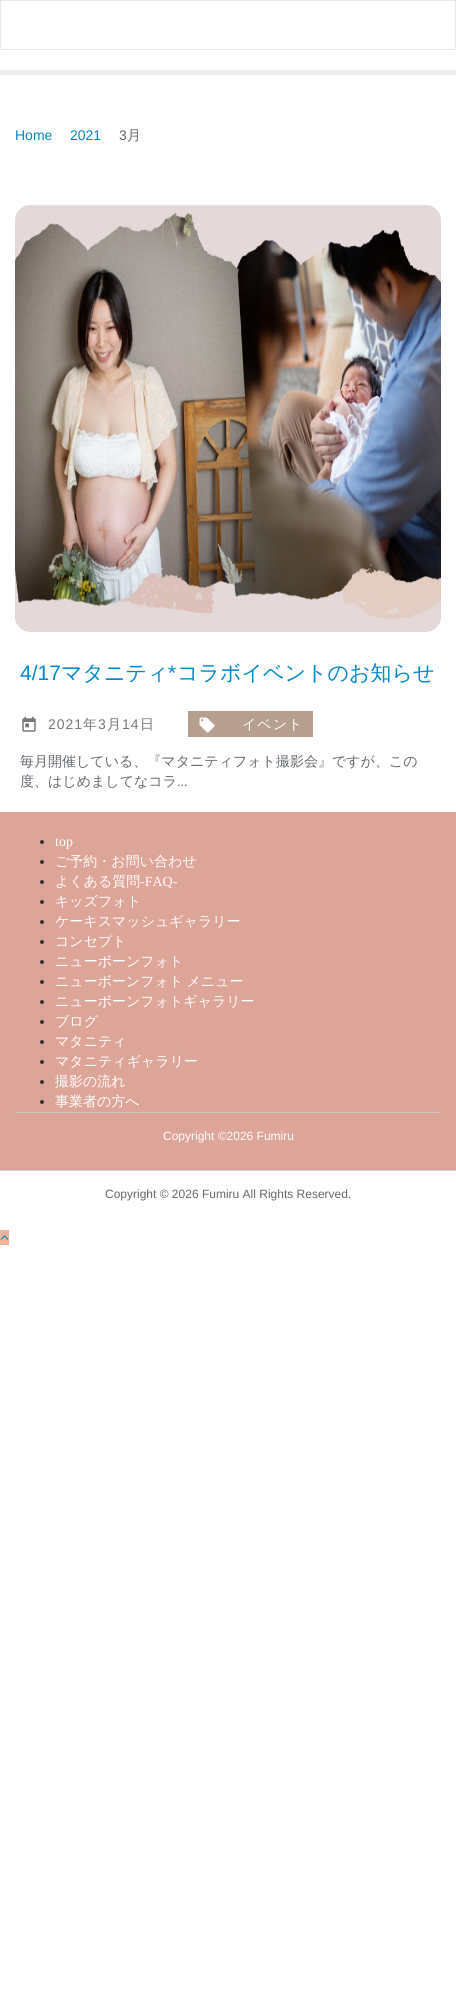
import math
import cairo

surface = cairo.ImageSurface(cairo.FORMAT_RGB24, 456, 2000)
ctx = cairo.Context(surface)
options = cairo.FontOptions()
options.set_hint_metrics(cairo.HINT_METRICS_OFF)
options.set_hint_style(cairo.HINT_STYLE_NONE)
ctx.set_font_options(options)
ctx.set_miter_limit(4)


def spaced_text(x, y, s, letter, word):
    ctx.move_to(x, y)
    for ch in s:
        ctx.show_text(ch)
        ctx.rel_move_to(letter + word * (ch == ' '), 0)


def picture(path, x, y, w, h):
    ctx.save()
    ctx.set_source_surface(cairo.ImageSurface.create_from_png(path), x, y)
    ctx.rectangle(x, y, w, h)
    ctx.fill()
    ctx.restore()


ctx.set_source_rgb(1, 1, 1)
ctx.paint()
ctx.set_source_rgb(0.933, 0.933, 0.933)
ctx.rectangle(0, 70, 456, 5)
ctx.fill()
ctx.rectangle(0.5, 0.5, 455, 49)
ctx.set_source_rgb(0.906, 0.906, 0.906)
ctx.set_line_width(1)
ctx.stroke()
ctx.select_font_face("Liberation Sans")
ctx.set_font_size(14)
ctx.set_source_rgb(0, 0.533, 0.8)
ctx.move_to(15, 140)
ctx.show_text("Home")
ctx.move_to(70, 140)
ctx.show_text("2021")
ctx.set_source_rgb(0.392, 0.408, 0.427)
ctx.move_to(119, 140)
ctx.show_text("3")
ctx.select_font_face("WenQuanYi Zen Hei Medium")
ctx.move_to(127, 140)
ctx.show_text("月")
picture("img1.png", 15, 205, 426, 427)
ctx.select_font_face("Liberation Sans")
ctx.set_font_size(21)
ctx.set_source_rgb(0, 0.533, 0.8)
ctx.move_to(20, 680)
ctx.show_text("4/17")
ctx.select_font_face("WenQuanYi Zen Hei Medium")
ctx.move_to(61, 680)
ctx.show_text("マタニティ")
ctx.select_font_face("Liberation Sans")
ctx.move_to(168, 680)
ctx.show_text("*")
ctx.select_font_face("WenQuanYi Zen Hei Medium")
ctx.move_to(177, 680)
ctx.show_text("コラボイベントのお知らせ")
picture("img2.png", 22, 716, 14, 16)
ctx.select_font_face("Liberation Sans")
ctx.set_font_size(14)
ctx.set_source_rgb(0.467, 0.467, 0.467)
spaced_text(48, 729, "2021", 1, 0)
ctx.select_font_face("WenQuanYi Zen Hei Medium")
spaced_text(83, 729, "年", 1, 0)
ctx.select_font_face("Liberation Sans")
spaced_text(98, 729, "3", 1, 0)
ctx.select_font_face("WenQuanYi Zen Hei Medium")
spaced_text(107, 729, "月", 1, 0)
ctx.select_font_face("Liberation Sans")
spaced_text(122, 729, "14", 1, 0)
ctx.select_font_face("WenQuanYi Zen Hei Medium")
spaced_text(140, 729, "日", 1, 0)
ctx.set_source_rgb(0.714, 0.624, 0.561)
ctx.rectangle(188, 711, 125, 26)
ctx.fill()
picture("img3.png", 199, 717, 16, 16)
ctx.set_source_rgb(1, 1, 1)
spaced_text(242, 729, "イベント", 1, 0)
ctx.set_source_rgb(0.392, 0.408, 0.427)
ctx.move_to(20, 766)
ctx.show_text("毎月開催している、『マタニティフォト撮影会』ですが、この")
ctx.move_to(20, 786)
ctx.show_text("度、はじめましてなコラ")
ctx.select_font_face("Liberation Serif")
ctx.move_to(177, 786)
ctx.show_text("...")
ctx.set_source_rgb(0.867, 0.643, 0.596)
ctx.rectangle(0, 812, 456, 358)
ctx.fill()
ctx.set_source_rgb(0.2, 0.2, 0.2)
ctx.arc(42, 842, 2, 0, 2 * math.pi)
ctx.fill()
ctx.set_source_rgb(1, 1, 1)
ctx.move_to(55, 846)
ctx.show_text("top")
ctx.set_source_rgb(0.2, 0.2, 0.2)
ctx.new_path()
ctx.arc(42, 862, 2, 0, 2 * math.pi)
ctx.fill()
ctx.select_font_face("WenQuanYi Zen Hei Medium")
ctx.set_source_rgb(1, 1, 1)
ctx.move_to(55, 866)
ctx.show_text("ご予約・お問い合わせ")
ctx.set_source_rgb(0.2, 0.2, 0.2)
ctx.new_path()
ctx.arc(42, 882, 2, 0, 2 * math.pi)
ctx.fill()
ctx.set_source_rgb(1, 1, 1)
ctx.move_to(55, 886)
ctx.show_text("よくある質問")
ctx.select_font_face("Liberation Serif")
ctx.move_to(140, 886)
ctx.show_text("-FAQ-")
ctx.set_source_rgb(0.2, 0.2, 0.2)
ctx.new_path()
ctx.arc(42, 902, 2, 0, 2 * math.pi)
ctx.fill()
ctx.select_font_face("WenQuanYi Zen Hei Medium")
ctx.set_source_rgb(1, 1, 1)
ctx.move_to(55, 906)
ctx.show_text("キッズフォト")
ctx.set_source_rgb(0.2, 0.2, 0.2)
ctx.new_path()
ctx.arc(42, 922, 2, 0, 2 * math.pi)
ctx.fill()
ctx.set_source_rgb(1, 1, 1)
ctx.move_to(55, 926)
ctx.show_text("ケーキスマッシュギャラリー")
ctx.set_source_rgb(0.2, 0.2, 0.2)
ctx.new_path()
ctx.arc(42, 942, 2, 0, 2 * math.pi)
ctx.fill()
ctx.set_source_rgb(1, 1, 1)
ctx.move_to(55, 946)
ctx.show_text("コンセプト")
ctx.set_source_rgb(0.2, 0.2, 0.2)
ctx.new_path()
ctx.arc(42, 962, 2, 0, 2 * math.pi)
ctx.fill()
ctx.set_source_rgb(1, 1, 1)
ctx.move_to(55, 966)
ctx.show_text("ニューボーンフォト")
ctx.set_source_rgb(0.2, 0.2, 0.2)
ctx.new_path()
ctx.arc(42, 982, 2, 0, 2 * math.pi)
ctx.fill()
ctx.set_source_rgb(1, 1, 1)
spaced_text(55, 986, "ニューボーンフォト メニュー", 0, -1)
ctx.set_source_rgb(0.2, 0.2, 0.2)
ctx.new_path()
ctx.arc(42, 1002, 2, 0, 2 * math.pi)
ctx.fill()
ctx.set_source_rgb(1, 1, 1)
ctx.move_to(55, 1006)
ctx.show_text("ニューボーンフォトギャラリー")
ctx.set_source_rgb(0.2, 0.2, 0.2)
ctx.new_path()
ctx.arc(42, 1022, 2, 0, 2 * math.pi)
ctx.fill()
ctx.set_source_rgb(1, 1, 1)
ctx.move_to(55, 1026)
ctx.show_text("ブログ")
ctx.set_source_rgb(0.2, 0.2, 0.2)
ctx.new_path()
ctx.arc(42, 1042, 2, 0, 2 * math.pi)
ctx.fill()
ctx.set_source_rgb(1, 1, 1)
ctx.move_to(55, 1046)
ctx.show_text("マタニティ")
ctx.set_source_rgb(0.2, 0.2, 0.2)
ctx.new_path()
ctx.arc(42, 1062, 2, 0, 2 * math.pi)
ctx.fill()
ctx.set_source_rgb(1, 1, 1)
ctx.move_to(55, 1066)
ctx.show_text("マタニティギャラリー")
ctx.set_source_rgb(0.2, 0.2, 0.2)
ctx.new_path()
ctx.arc(42, 1082, 2, 0, 2 * math.pi)
ctx.fill()
ctx.set_source_rgb(1, 1, 1)
ctx.move_to(55, 1086)
ctx.show_text("撮影の流れ")
ctx.set_source_rgb(0.2, 0.2, 0.2)
ctx.new_path()
ctx.arc(42, 1102, 2, 0, 2 * math.pi)
ctx.fill()
ctx.set_source_rgb(1, 1, 1)
ctx.move_to(55, 1106)
ctx.show_text("事業者の方へ")
ctx.set_source_rgb(0.8, 0.8, 0.8)
ctx.rectangle(15, 1112, 426, 1)
ctx.fill()
ctx.select_font_face("Liberation Sans")
ctx.set_font_size(12)
ctx.set_source_rgb(1, 1, 1)
ctx.move_to(163, 1140)
ctx.show_text("Copyright ©2026 Fumiru")
ctx.set_source_rgb(0.8, 0.8, 0.8)
ctx.rectangle(0, 1170, 456, 1)
ctx.fill()
ctx.set_source_rgb(0.4, 0.4, 0.4)
ctx.move_to(105, 1198)
ctx.show_text("Copyright © 2026 Fumiru All Rights Reserved.")
ctx.set_source_rgb(0.945, 0.706, 0.596)
ctx.rectangle(0, 1230, 9, 15)
ctx.fill()
picture("img4.png", 0, 1235, 9, 5)
surface.write_to_png("page.png")
